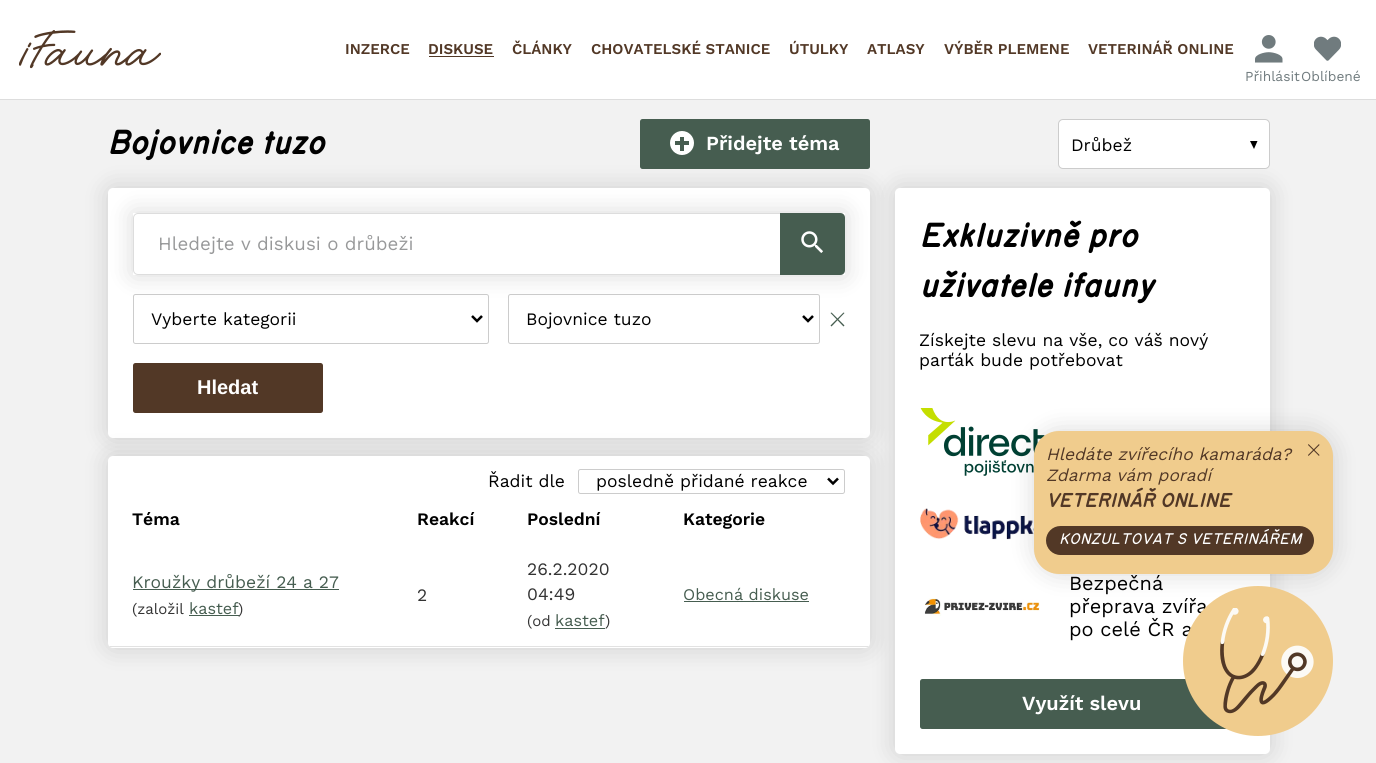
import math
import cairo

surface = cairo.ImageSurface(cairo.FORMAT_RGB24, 1376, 763)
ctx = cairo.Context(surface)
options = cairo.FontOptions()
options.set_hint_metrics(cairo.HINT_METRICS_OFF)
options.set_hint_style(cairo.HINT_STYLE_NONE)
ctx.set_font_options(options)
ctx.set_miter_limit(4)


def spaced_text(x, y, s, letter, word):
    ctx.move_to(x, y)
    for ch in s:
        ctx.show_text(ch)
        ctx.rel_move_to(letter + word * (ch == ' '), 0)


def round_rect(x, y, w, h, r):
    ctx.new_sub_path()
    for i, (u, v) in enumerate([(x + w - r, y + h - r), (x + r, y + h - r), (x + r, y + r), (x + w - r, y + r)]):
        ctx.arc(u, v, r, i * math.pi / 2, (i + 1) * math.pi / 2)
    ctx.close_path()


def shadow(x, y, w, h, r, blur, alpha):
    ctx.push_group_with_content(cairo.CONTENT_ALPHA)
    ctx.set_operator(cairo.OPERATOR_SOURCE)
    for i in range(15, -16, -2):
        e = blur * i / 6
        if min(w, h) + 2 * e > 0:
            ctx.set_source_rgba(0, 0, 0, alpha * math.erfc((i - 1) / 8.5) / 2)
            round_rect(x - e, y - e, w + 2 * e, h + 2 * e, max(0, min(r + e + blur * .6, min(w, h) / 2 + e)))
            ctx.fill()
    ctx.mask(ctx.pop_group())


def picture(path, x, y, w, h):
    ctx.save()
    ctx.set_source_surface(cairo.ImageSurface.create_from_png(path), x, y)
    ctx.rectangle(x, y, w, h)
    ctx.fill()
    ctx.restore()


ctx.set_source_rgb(0.949, 0.949, 0.949)
ctx.paint()
ctx.set_source_rgb(1, 1, 1)
ctx.rectangle(0, 0, 1376, 99)
ctx.fill()
ctx.set_source_rgb(0.867, 0.867, 0.867)
ctx.rectangle(0, 99, 1376, 1)
ctx.fill()
picture("img1.png", 19, 30, 142, 39)
ctx.select_font_face("Work Sans SemiBold")
ctx.set_font_size(15)
ctx.set_source_rgb(0.322, 0.22, 0.149)
ctx.move_to(345, 54)
ctx.show_text("INZERCE")
ctx.move_to(428, 54)
ctx.show_text("DISKUSE")
ctx.rectangle(429, 56, 65, 1)
ctx.fill()
ctx.move_to(512, 54)
ctx.show_text("ČLÁNKY")
ctx.move_to(591, 54)
ctx.show_text("CHOVATELSKÉ STANICE")
ctx.move_to(789, 54)
ctx.show_text("ÚTULKY")
ctx.move_to(867, 54)
ctx.show_text("ATLASY")
ctx.move_to(944, 54)
ctx.show_text("VÝBĚR PLEMENE")
ctx.move_to(1088, 54)
ctx.show_text("VETERINÁŘ ONLINE")
picture("img2.png", 1255, 35, 28, 28)
ctx.select_font_face("Work Sans")
ctx.set_font_size(13.75)
ctx.set_source_rgb(0.439, 0.482, 0.494)
ctx.move_to(1245, 81)
ctx.show_text("Přihlásit")
picture("img3.png", 1314, 36, 27, 25)
ctx.move_to(1301, 81)
ctx.show_text("Oblíbené")
ctx.select_font_face("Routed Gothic", cairo.FONT_SLANT_ITALIC, cairo.FONT_WEIGHT_BOLD)
ctx.set_font_size(32.5)
ctx.set_source_rgb(0, 0, 0)
ctx.move_to(107, 154)
ctx.show_text("Bojovnice tuzo")
ctx.set_source_rgb(0.275, 0.365, 0.314)
round_rect(641.5, 120.5, 227, 47, 1)
ctx.fill_preserve()
ctx.set_line_width(3)
ctx.stroke()
ctx.set_source_rgb(0, 0, 0)
shadow(108, 188, 762, 250, 5, 12.5, 0.15)
ctx.set_source_rgb(1, 1, 1)
ctx.arc(682, 143, 12, 0, 2 * math.pi)
ctx.fill()
ctx.set_source_rgb(0.275, 0.365, 0.314)
ctx.rectangle(675, 141, 14, 4)
ctx.fill()
ctx.rectangle(680, 137, 4, 14)
ctx.fill()
ctx.select_font_face("Work Sans SemiBold")
ctx.set_font_size(20)
ctx.set_source_rgb(1, 1, 1)
ctx.move_to(706, 150)
ctx.show_text("Přidejte téma")
round_rect(108, 188, 762, 250, 5)
ctx.fill()
round_rect(133.5, 294.5, 355, 49, 2)
ctx.set_source_rgb(0.8, 0.8, 0.8)
ctx.set_line_width(1)
ctx.stroke()
round_rect(508.5, 294.5, 311, 49, 2)
ctx.stroke()
ctx.set_source_rgb(0.275, 0.365, 0.314)
ctx.new_path()
ctx.move_to(830.5, 313)
ctx.line_to(831.5, 312.5)
ctx.line_to(844.5, 325.5)
ctx.line_to(843.5, 326.5)
ctx.close_path()
ctx.fill()
ctx.new_path()
ctx.move_to(843.5, 312.5)
ctx.line_to(844.5, 313)
ctx.line_to(831.5, 326.5)
ctx.line_to(830.5, 325.5)
ctx.close_path()
ctx.fill()
ctx.save()
ctx.set_fill_rule(cairo.FILL_RULE_EVEN_ODD)
ctx.new_path()
ctx.move_to(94, 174)
ctx.line_to(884, 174)
ctx.line_to(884, 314)
ctx.line_to(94, 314)
ctx.close_path()
ctx.move_to(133, 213)
ctx.line_to(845, 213)
ctx.line_to(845, 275)
ctx.line_to(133, 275)
ctx.close_path()
ctx.clip()
ctx.set_source_rgb(0, 0, 0)
shadow(133, 213, 712, 62, 0, 12.5, 0.15)
ctx.restore()
round_rect(133.5, 213.5, 711, 61, 4.5)
ctx.set_source_rgb(0.867, 0.867, 0.867)
ctx.stroke()
ctx.select_font_face("Work Sans")
ctx.set_font_size(18.75)
ctx.set_source_rgb(0.596, 0.6, 0.604)
ctx.move_to(158, 250)
ctx.show_text("Hledejte v diskusi o drůbeži")
ctx.set_source_rgb(0.275, 0.365, 0.314)
ctx.new_path()
ctx.move_to(780, 213)
ctx.line_to(840, 213)
ctx.curve_to(843, 213, 845, 215, 845, 218)
ctx.line_to(845, 270)
ctx.curve_to(845, 273, 843, 275, 840, 275)
ctx.line_to(780, 275)
ctx.close_path()
ctx.fill()
picture("img4.png", 801, 231, 22, 22)
ctx.new_path()
ctx.move_to(472, 316)
ctx.line_to(477, 321)
ctx.line_to(482, 316)
ctx.set_source_rgb(0, 0, 0)
ctx.set_line_width(2.5)
ctx.stroke()
ctx.set_font_size(17.5)
ctx.move_to(151, 325)
ctx.show_text("Vyberte kategorii")
ctx.new_path()
ctx.move_to(803, 316)
ctx.line_to(808, 321)
ctx.line_to(813, 316)
ctx.stroke()
ctx.move_to(526, 325)
ctx.show_text("Bojovnice tuzo")
ctx.set_source_rgb(0.322, 0.22, 0.149)
round_rect(134.5, 364.5, 187, 47, 1)
ctx.fill_preserve()
ctx.set_line_width(3)
ctx.stroke()
ctx.select_font_face("Liberation Sans", cairo.FONT_SLANT_NORMAL, cairo.FONT_WEIGHT_BOLD)
ctx.set_font_size(20)
ctx.set_source_rgb(1, 1, 1)
ctx.move_to(197, 394)
ctx.show_text("Hledat")
ctx.set_source_rgb(0, 0, 0)
shadow(108, 456, 762, 192, 5, 12.5, 0.15)
ctx.set_source_rgb(1, 1, 1)
round_rect(108, 456, 762, 192, 5)
ctx.fill()
ctx.select_font_face("Work Sans")
ctx.set_font_size(17.5)
ctx.set_source_rgb(0, 0, 0)
ctx.move_to(488, 487)
ctx.show_text("Řadit dle")
round_rect(578.5, 469.5, 266, 24, 2)
ctx.set_source_rgb(0.8, 0.8, 0.8)
ctx.set_line_width(1)
ctx.stroke()
ctx.new_path()
ctx.move_to(828, 478.5)
ctx.line_to(833, 483.5)
ctx.line_to(838, 478.5)
ctx.set_source_rgb(0, 0, 0)
ctx.set_line_width(2.5)
ctx.stroke()
ctx.move_to(596, 487)
ctx.show_text("posledně přidané reakce")
ctx.select_font_face("Work Sans SemiBold")
ctx.move_to(132, 525)
ctx.show_text("Téma")
ctx.move_to(417, 525)
ctx.show_text("Reakcí")
ctx.move_to(527, 525)
ctx.show_text("Poslední")
ctx.move_to(683, 525)
ctx.show_text("Kategorie")
ctx.set_source_rgb(0, 0, 0)
shadow(895, 188, 375, 566, 5, 12.5, 0.15)
ctx.save()
round_rect(108, 456, 762, 192, 5)
ctx.clip()
ctx.set_source_rgb(0.886, 0.886, 0.886)
ctx.rectangle(108, 646, 762, 1)
ctx.fill()
ctx.restore()
ctx.set_source_rgb(0.275, 0.365, 0.314)
ctx.rectangle(133, 589, 206, 1)
ctx.fill()
ctx.select_font_face("Work Sans")
ctx.move_to(132, 588)
ctx.show_text("Kroužky drůbeží 24 a 27")
ctx.set_font_size(15)
ctx.set_source_rgb(0.2, 0.2, 0.2)
ctx.move_to(132, 614)
ctx.show_text("(založil")
ctx.move_to(238, 614)
ctx.show_text(")")
ctx.set_font_size(16.25)
ctx.set_source_rgb(0.275, 0.365, 0.314)
ctx.move_to(189, 614)
ctx.show_text("kastef")
ctx.rectangle(189, 615, 50, 1)
ctx.fill()
ctx.set_font_size(17.5)
ctx.set_source_rgb(0.2, 0.2, 0.2)
ctx.move_to(417, 601)
ctx.show_text("2")
ctx.move_to(527, 575)
ctx.show_text("26.2.2020")
ctx.move_to(527, 600)
ctx.show_text("04:49")
ctx.set_font_size(15)
ctx.move_to(527, 626)
ctx.show_text("(od")
ctx.set_font_size(16.25)
ctx.set_source_rgb(0.275, 0.365, 0.314)
ctx.move_to(555, 626)
ctx.show_text("kastef")
ctx.rectangle(555, 628, 50, 1)
ctx.fill()
ctx.set_font_size(15)
ctx.set_source_rgb(0.2, 0.2, 0.2)
ctx.move_to(605, 626)
ctx.show_text(")")
ctx.set_font_size(16.25)
ctx.set_source_rgb(0.275, 0.365, 0.314)
ctx.move_to(683, 600)
ctx.show_text("Obecná diskuse")
ctx.rectangle(684, 601, 125, 1)
ctx.fill()
ctx.set_source_rgb(1, 1, 1)
round_rect(1058.5, 119.5, 211, 49, 4.5)
ctx.fill_preserve()
ctx.set_source_rgb(0.8, 0.8, 0.8)
ctx.set_line_width(1)
ctx.stroke()
ctx.set_font_size(17.5)
ctx.set_source_rgb(0, 0, 0)
ctx.move_to(1071, 151)
ctx.show_text("Drůbež")
ctx.new_path()
ctx.move_to(1250, 141)
ctx.line_to(1257.5, 141)
ctx.line_to(1254, 149)
ctx.close_path()
ctx.fill()
ctx.set_source_rgb(1, 1, 1)
round_rect(895, 188, 375, 566, 5)
ctx.fill()
ctx.select_font_face("Routed Gothic", cairo.FONT_SLANT_ITALIC, cairo.FONT_WEIGHT_BOLD)
ctx.set_font_size(32.5)
ctx.set_source_rgb(0, 0, 0)
ctx.move_to(919, 247)
ctx.show_text("Exkluzivně pro")
ctx.move_to(919, 297)
ctx.show_text("uživatele ifauny")
ctx.select_font_face("Work Sans")
ctx.set_font_size(17.5)
ctx.move_to(919, 346)
ctx.show_text("Získejte slevu na vše, co váš nový")
ctx.move_to(919, 366)
ctx.show_text("parťák bude potřebovat")
picture("img5.png", 920, 408, 125, 68)
picture("img6.png", 920, 508, 114, 32)
ctx.set_font_size(20)
ctx.move_to(1069, 590)
ctx.show_text("Bezpečná")
picture("img7.png", 924, 598, 116, 18)
ctx.move_to(1069, 613)
ctx.show_text("přeprava zvířa")
ctx.move_to(1069, 636)
ctx.show_text("po celé ČR a")
ctx.set_source_rgb(0.275, 0.365, 0.314)
round_rect(921.5, 680.5, 322, 47, 1)
ctx.fill_preserve()
ctx.set_line_width(3)
ctx.stroke()
ctx.select_font_face("Work Sans SemiBold")
ctx.set_source_rgb(1, 1, 1)
ctx.move_to(1022, 710)
ctx.show_text("Využít slevu")
ctx.set_source_rgb(0, 0, 0)
shadow(1034, 431, 299, 143, 25, 12.5, 0.15)
ctx.set_source_rgb(0.941, 0.8, 0.553)
round_rect(1034, 431, 299, 143, 25)
ctx.fill()
ctx.select_font_face("Work Sans", cairo.FONT_SLANT_ITALIC)
ctx.set_font_size(17.25)
ctx.set_source_rgb(0.322, 0.22, 0.149)
ctx.move_to(1046, 460)
ctx.show_text("Hledáte zvířecího kamaráda?")
ctx.move_to(1046, 481)
ctx.show_text("Zdarma vám poradí")
ctx.select_font_face("Routed Gothic", cairo.FONT_SLANT_ITALIC, cairo.FONT_WEIGHT_BOLD)
ctx.set_font_size(18.75)
ctx.move_to(1046, 507)
ctx.show_text("VETERINÁŘ ONLINE")
round_rect(1046, 526, 268, 29, 14.5)
ctx.fill()
ctx.select_font_face("Routed Gothic", cairo.FONT_SLANT_ITALIC)
ctx.set_font_size(15)
ctx.set_source_rgb(1, 1, 1)
spaced_text(1059, 544, "KONZULTOVAT S VETERINÁŘEM", 0.15, 0)
ctx.set_source_rgb(0.322, 0.22, 0.149)
ctx.new_path()
ctx.move_to(1308.5, 444)
ctx.line_to(1319.5, 455)
ctx.line_to(1319, 456)
ctx.line_to(1308, 445)
ctx.close_path()
ctx.fill()
ctx.new_path()
ctx.move_to(1308, 455)
ctx.line_to(1319, 444)
ctx.line_to(1319.5, 445)
ctx.line_to(1308.5, 456)
ctx.close_path()
ctx.fill()
ctx.set_source_rgb(0.941, 0.8, 0.553)
ctx.arc(1258, 661, 75, 0, 2 * math.pi)
ctx.fill()
picture("img8.png", 1220, 608, 94, 106)
surface.write_to_png("page.png")
